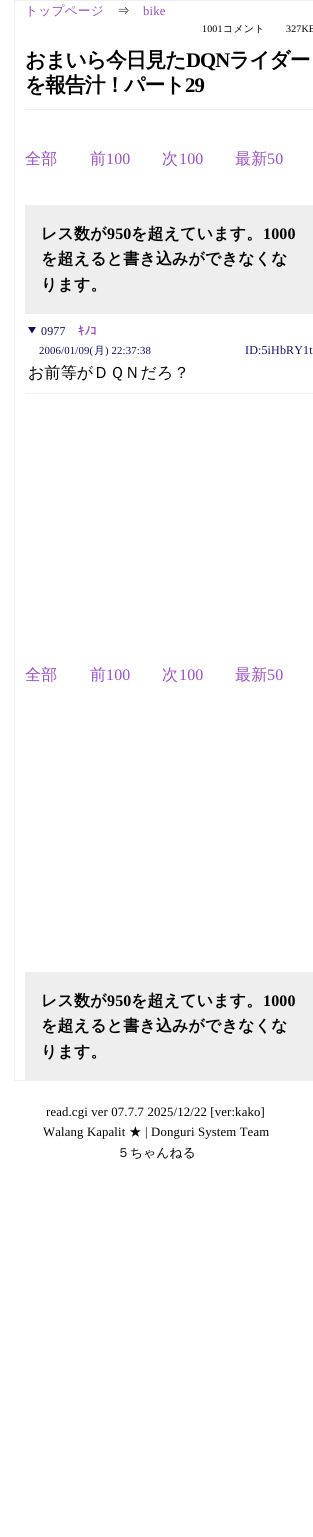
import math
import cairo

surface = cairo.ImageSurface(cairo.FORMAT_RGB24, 313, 1537)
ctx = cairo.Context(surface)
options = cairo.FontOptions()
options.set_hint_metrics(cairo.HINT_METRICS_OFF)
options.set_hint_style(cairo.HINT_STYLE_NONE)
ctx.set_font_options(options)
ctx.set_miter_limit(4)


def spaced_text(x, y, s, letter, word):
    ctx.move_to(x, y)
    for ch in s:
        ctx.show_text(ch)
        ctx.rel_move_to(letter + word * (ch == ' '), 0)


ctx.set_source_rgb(1, 1, 1)
ctx.paint()
ctx.rectangle(14.5, 0.5, 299, 1080)
ctx.set_source_rgb(0.933, 0.933, 0.933)
ctx.set_line_width(1)
ctx.stroke()
ctx.select_font_face("WenQuanYi Zen Hei Medium")
ctx.set_font_size(12.75)
ctx.set_source_rgb(0.608, 0.302, 0.792)
spaced_text(25, 15, "トップページ", 0.15, 0)
ctx.set_source_rgb(0, 0, 0)
spaced_text(117, 15, "⇒", 0.15, 0)
ctx.select_font_face("Liberation Serif")
ctx.set_source_rgb(0.608, 0.302, 0.792)
spaced_text(143, 15, "bike", 0.15, 0)
ctx.set_font_size(10)
ctx.set_source_rgb(0, 0, 0)
spaced_text(202, 32, "1001", 0.15, 0)
ctx.select_font_face("WenQuanYi Zen Hei Medium")
spaced_text(223, 32, "コメント", 0.15, 0)
ctx.select_font_face("Liberation Serif")
spaced_text(286, 32, "327KB", 0.15, 0)
ctx.set_source_rgb(0.933, 0.933, 0.933)
ctx.rectangle(25, 109, 288, 1)
ctx.fill()
ctx.select_font_face("WenQuanYi Zen Hei", cairo.FONT_SLANT_NORMAL, cairo.FONT_WEIGHT_BOLD)
ctx.set_font_size(20.75)
ctx.set_source_rgb(0, 0, 0)
spaced_text(25, 67, "おまいら今日見た", -1, 0)
ctx.select_font_face("Liberation Serif", cairo.FONT_SLANT_NORMAL, cairo.FONT_WEIGHT_BOLD)
spaced_text(186, 67, "DQN", -1, 0)
ctx.select_font_face("WenQuanYi Zen Hei", cairo.FONT_SLANT_NORMAL, cairo.FONT_WEIGHT_BOLD)
spaced_text(229, 67, "ライダー", -1, 0)
spaced_text(25, 92, "を報告汁！パート", -1, 0)
ctx.select_font_face("Liberation Serif", cairo.FONT_SLANT_NORMAL, cairo.FONT_WEIGHT_BOLD)
spaced_text(185, 92, "29", -1, 0)
ctx.select_font_face("WenQuanYi Zen Hei Medium")
ctx.set_font_size(16)
ctx.set_source_rgb(0.608, 0.302, 0.792)
spaced_text(25, 164, "全部", 0.15, 0)
spaced_text(90, 164, "前", 0.15, 0)
ctx.select_font_face("Liberation Serif")
spaced_text(106, 164, "100", 0.15, 0)
ctx.select_font_face("WenQuanYi Zen Hei Medium")
spaced_text(162, 164, "次", 0.15, 0)
ctx.select_font_face("Liberation Serif")
spaced_text(179, 164, "100", 0.15, 0)
ctx.select_font_face("WenQuanYi Zen Hei Medium")
spaced_text(235, 164, "最新", 0.15, 0)
ctx.select_font_face("Liberation Serif")
spaced_text(267, 164, "50", 0.15, 0)
ctx.set_source_rgb(0.933, 0.933, 0.933)
ctx.rectangle(25, 205, 288, 109)
ctx.fill()
ctx.select_font_face("WenQuanYi Zen Hei", cairo.FONT_SLANT_NORMAL, cairo.FONT_WEIGHT_BOLD)
ctx.set_source_rgb(0, 0, 0)
spaced_text(41, 239, "レス数が", 0.15, 0)
ctx.select_font_face("Liberation Serif", cairo.FONT_SLANT_NORMAL, cairo.FONT_WEIGHT_BOLD)
spaced_text(107, 239, "950", 0.15, 0)
ctx.select_font_face("WenQuanYi Zen Hei", cairo.FONT_SLANT_NORMAL, cairo.FONT_WEIGHT_BOLD)
spaced_text(131, 239, "を超えています。", 0.15, 0)
ctx.select_font_face("Liberation Serif", cairo.FONT_SLANT_NORMAL, cairo.FONT_WEIGHT_BOLD)
spaced_text(263, 239, "1000", 0.15, 0)
ctx.select_font_face("WenQuanYi Zen Hei", cairo.FONT_SLANT_NORMAL, cairo.FONT_WEIGHT_BOLD)
spaced_text(41, 264, "を超えると書き込みができなくな", 0.15, 0)
spaced_text(41, 290, "ります。", 0.15, 0)
ctx.set_source_rgb(0.933, 0.933, 0.933)
ctx.rectangle(25, 393, 288, 1)
ctx.fill()
ctx.set_source_rgb(0.055, 0.055, 0.431)
ctx.new_path()
ctx.move_to(28, 327)
ctx.line_to(36, 327)
ctx.line_to(32, 333.5)
ctx.close_path()
ctx.fill()
ctx.select_font_face("Liberation Serif")
ctx.set_font_size(12)
spaced_text(41, 335, "0977", 0.15, 0)
ctx.select_font_face("IPAPGothic", cairo.FONT_SLANT_NORMAL, cairo.FONT_WEIGHT_BOLD)
ctx.set_source_rgb(0.608, 0.302, 0.792)
spaced_text(78, 335, "ｷﾉｺ", 0.15, 0)
ctx.select_font_face("Liberation Serif")
ctx.set_font_size(10.75)
ctx.set_source_rgb(0.055, 0.055, 0.431)
spaced_text(39, 354, "2006/01/09(", 0.15, 0)
ctx.select_font_face("WenQuanYi Zen Hei Medium")
spaced_text(94, 354, "月", 0.15, 0)
ctx.select_font_face("Liberation Serif")
spaced_text(105, 354, ") 22:37:38", 0.15, 0)
ctx.set_font_size(12)
spaced_text(245, 354, "ID:5iHbRY1t", 0.15, 0)
ctx.select_font_face("WenQuanYi Zen Hei Medium")
ctx.set_font_size(16)
ctx.set_source_rgb(0, 0, 0)
spaced_text(28, 378, "お前等がＤＱＮだろ？", 0.15, 0)
ctx.set_source_rgb(0.608, 0.302, 0.792)
spaced_text(25, 680, "全部", 0.15, 0)
spaced_text(90, 680, "前", 0.15, 0)
ctx.select_font_face("Liberation Serif")
spaced_text(106, 680, "100", 0.15, 0)
ctx.select_font_face("WenQuanYi Zen Hei Medium")
spaced_text(162, 680, "次", 0.15, 0)
ctx.select_font_face("Liberation Serif")
spaced_text(179, 680, "100", 0.15, 0)
ctx.select_font_face("WenQuanYi Zen Hei Medium")
spaced_text(235, 680, "最新", 0.15, 0)
ctx.select_font_face("Liberation Serif")
spaced_text(267, 680, "50", 0.15, 0)
ctx.set_source_rgb(0.933, 0.933, 0.933)
ctx.rectangle(25, 972, 288, 108)
ctx.fill()
ctx.select_font_face("WenQuanYi Zen Hei", cairo.FONT_SLANT_NORMAL, cairo.FONT_WEIGHT_BOLD)
ctx.set_source_rgb(0, 0, 0)
spaced_text(41, 1006, "レス数が", 0.15, 0)
ctx.select_font_face("Liberation Serif", cairo.FONT_SLANT_NORMAL, cairo.FONT_WEIGHT_BOLD)
spaced_text(107, 1006, "950", 0.15, 0)
ctx.select_font_face("WenQuanYi Zen Hei", cairo.FONT_SLANT_NORMAL, cairo.FONT_WEIGHT_BOLD)
spaced_text(131, 1006, "を超えています。", 0.15, 0)
ctx.select_font_face("Liberation Serif", cairo.FONT_SLANT_NORMAL, cairo.FONT_WEIGHT_BOLD)
spaced_text(263, 1006, "1000", 0.15, 0)
ctx.select_font_face("WenQuanYi Zen Hei", cairo.FONT_SLANT_NORMAL, cairo.FONT_WEIGHT_BOLD)
spaced_text(41, 1031, "を超えると書き込みができなくな", 0.15, 0)
spaced_text(41, 1057, "ります。", 0.15, 0)
ctx.select_font_face("Liberation Serif")
ctx.set_font_size(12.75)
spaced_text(46, 1116, "read.cgi ver 07.7.7 2025/12/22 [ver:kako]", 0.15, 0)
spaced_text(43, 1136, "Walang Kapalit", 0.15, 0)
ctx.select_font_face("WenQuanYi Zen Hei Medium")
spaced_text(129, 1136, "★", 0.15, 0)
ctx.select_font_face("Liberation Serif")
spaced_text(145, 1136, "| Donguri System Team", 0.15, 0)
ctx.select_font_face("WenQuanYi Zen Hei Medium")
spaced_text(117, 1157, "５ちゃんねる", 0.15, 0)
surface.write_to_png("page.png")
